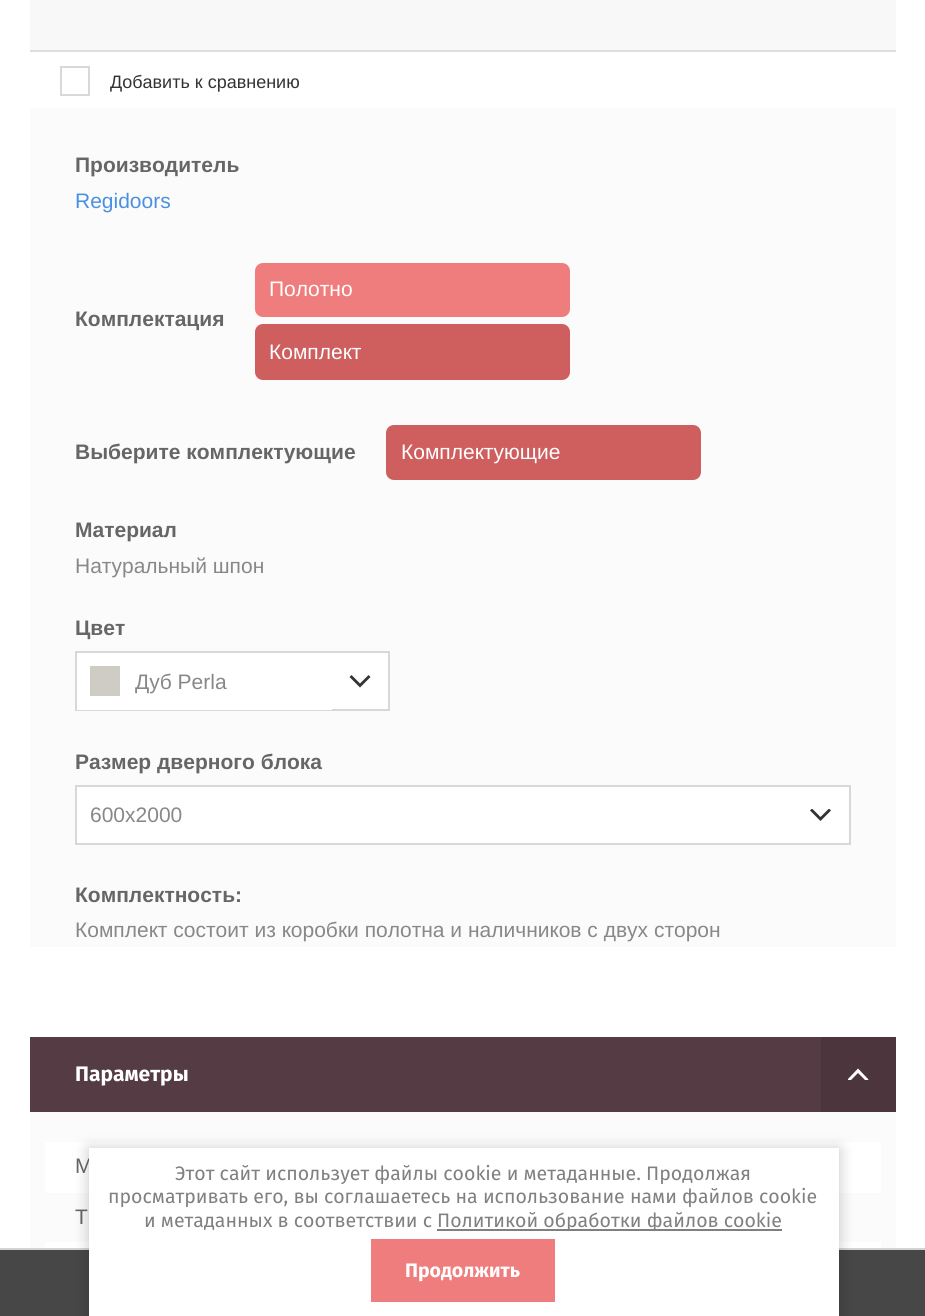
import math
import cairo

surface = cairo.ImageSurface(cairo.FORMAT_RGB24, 925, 1316)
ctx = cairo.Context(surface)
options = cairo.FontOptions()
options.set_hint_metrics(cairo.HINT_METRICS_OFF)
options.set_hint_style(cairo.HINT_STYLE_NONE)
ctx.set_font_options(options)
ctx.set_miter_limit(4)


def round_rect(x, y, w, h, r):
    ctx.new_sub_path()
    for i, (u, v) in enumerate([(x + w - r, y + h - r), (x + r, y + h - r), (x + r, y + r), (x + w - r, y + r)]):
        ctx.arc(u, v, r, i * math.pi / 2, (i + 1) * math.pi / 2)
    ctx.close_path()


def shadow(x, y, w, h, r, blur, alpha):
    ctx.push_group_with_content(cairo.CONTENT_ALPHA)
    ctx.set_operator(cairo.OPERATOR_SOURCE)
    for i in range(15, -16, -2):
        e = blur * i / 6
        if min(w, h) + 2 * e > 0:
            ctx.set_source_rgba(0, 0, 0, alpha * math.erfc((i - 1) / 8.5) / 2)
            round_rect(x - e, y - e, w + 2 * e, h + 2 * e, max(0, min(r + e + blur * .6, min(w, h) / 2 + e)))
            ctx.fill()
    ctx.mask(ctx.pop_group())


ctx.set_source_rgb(1, 1, 1)
ctx.paint()
ctx.set_source_rgb(0.278, 0.278, 0.278)
ctx.rectangle(0, 1250, 925, 66)
ctx.fill()
ctx.set_source_rgb(0.969, 0.969, 0.969)
ctx.rectangle(30, 0, 866, 50)
ctx.fill()
ctx.set_source_rgb(0.871, 0.871, 0.871)
ctx.rectangle(30, 50, 866, 2)
ctx.fill()
ctx.rectangle(61, 67, 28, 28)
ctx.set_source_rgb(0.851, 0.851, 0.851)
ctx.stroke()
ctx.select_font_face("Liberation Sans")
ctx.set_font_size(18)
ctx.set_source_rgb(0.2, 0.2, 0.2)
ctx.move_to(110, 88)
ctx.show_text("Добавить к сравнению")
ctx.set_source_rgb(0.984, 0.984, 0.984)
ctx.rectangle(30, 108, 866, 839)
ctx.fill()
ctx.select_font_face("Liberation Sans", cairo.FONT_SLANT_NORMAL, cairo.FONT_WEIGHT_BOLD)
ctx.set_font_size(21)
ctx.set_source_rgb(0.4, 0.4, 0.4)
ctx.move_to(75, 172)
ctx.show_text("Производитель")
ctx.select_font_face("Liberation Sans")
ctx.set_source_rgb(0.29, 0.565, 0.886)
ctx.move_to(75, 208)
ctx.show_text("Regidoors")
ctx.select_font_face("Liberation Sans", cairo.FONT_SLANT_NORMAL, cairo.FONT_WEIGHT_BOLD)
ctx.set_source_rgb(0.4, 0.4, 0.4)
ctx.move_to(75, 326)
ctx.show_text("Комплектация")
ctx.set_source_rgb(0.937, 0.49, 0.49)
round_rect(255, 263, 315, 54, 8)
ctx.fill()
ctx.select_font_face("Liberation Sans")
ctx.set_source_rgb(1, 1, 1)
ctx.move_to(269, 296)
ctx.show_text("Полотно")
ctx.set_source_rgb(0.812, 0.369, 0.369)
round_rect(255, 324, 315, 56, 8)
ctx.fill()
ctx.set_source_rgb(1, 1, 1)
ctx.move_to(269, 359)
ctx.show_text("Комплект")
ctx.select_font_face("Liberation Sans", cairo.FONT_SLANT_NORMAL, cairo.FONT_WEIGHT_BOLD)
ctx.set_source_rgb(0.4, 0.4, 0.4)
ctx.move_to(75, 459)
ctx.show_text("Выберите комплектующие")
ctx.set_source_rgb(0.812, 0.369, 0.369)
round_rect(386, 425, 315, 55, 8)
ctx.fill()
ctx.select_font_face("Liberation Sans")
ctx.set_source_rgb(1, 1, 1)
ctx.move_to(401, 459)
ctx.show_text("Комплектующие")
ctx.select_font_face("Liberation Sans", cairo.FONT_SLANT_NORMAL, cairo.FONT_WEIGHT_BOLD)
ctx.set_source_rgb(0.4, 0.4, 0.4)
ctx.move_to(75, 537)
ctx.show_text("Материал")
ctx.select_font_face("Liberation Sans")
ctx.set_source_rgb(0.533, 0.533, 0.533)
ctx.move_to(75, 573)
ctx.show_text("Натуральный шпон")
ctx.select_font_face("Liberation Sans", cairo.FONT_SLANT_NORMAL, cairo.FONT_WEIGHT_BOLD)
ctx.set_source_rgb(0.4, 0.4, 0.4)
ctx.move_to(75, 635)
ctx.show_text("Цвет")
ctx.set_source_rgb(1, 1, 1)
ctx.rectangle(332, 653, 56, 56)
ctx.fill()
ctx.rectangle(76, 652, 313, 58)
ctx.set_source_rgb(0.847, 0.847, 0.847)
ctx.stroke()
ctx.set_source_rgb(1, 1, 1)
ctx.rectangle(77, 653, 255, 57)
ctx.fill()
ctx.set_source_rgb(0.812, 0.8, 0.773)
ctx.rectangle(90, 666, 30, 30)
ctx.fill()
ctx.select_font_face("Liberation Sans")
ctx.set_source_rgb(0.533, 0.533, 0.533)
ctx.move_to(135, 689)
ctx.show_text("Дуб Perla")
ctx.set_source_rgb(0.2, 0.2, 0.2)
ctx.set_fill_rule(cairo.FILL_RULE_EVEN_ODD)
ctx.new_path()
ctx.move_to(360, 683.5)
ctx.line_to(351.5, 675)
ctx.line_to(349.5, 677)
ctx.line_to(360, 687.5)
ctx.line_to(370.5, 677)
ctx.line_to(368.5, 675)
ctx.close_path()
ctx.fill()
ctx.select_font_face("Liberation Sans", cairo.FONT_SLANT_NORMAL, cairo.FONT_WEIGHT_BOLD)
ctx.set_source_rgb(0.4, 0.4, 0.4)
ctx.move_to(75, 769)
ctx.show_text("Размер дверного блока")
ctx.set_source_rgb(1, 1, 1)
ctx.rectangle(76, 786, 774, 58)
ctx.fill_preserve()
ctx.set_source_rgb(0.847, 0.847, 0.847)
ctx.stroke()
ctx.select_font_face("Liberation Sans")
ctx.set_source_rgb(0.533, 0.533, 0.533)
ctx.move_to(90, 822)
ctx.show_text("600x2000")
ctx.save()
ctx.set_fill_rule(cairo.FILL_RULE_WINDING)
ctx.rectangle(810, 809, 23, 13)
ctx.clip()
ctx.set_source_rgb(0.2, 0.2, 0.2)
ctx.set_fill_rule(cairo.FILL_RULE_EVEN_ODD)
ctx.new_path()
ctx.move_to(820.5, 817)
ctx.line_to(812, 808.5)
ctx.line_to(810, 810.5)
ctx.line_to(820.5, 821)
ctx.line_to(831, 810.5)
ctx.line_to(829, 808.5)
ctx.close_path()
ctx.fill()
ctx.restore()
ctx.select_font_face("Liberation Sans", cairo.FONT_SLANT_NORMAL, cairo.FONT_WEIGHT_BOLD)
ctx.set_source_rgb(0.4, 0.4, 0.4)
ctx.move_to(75, 902)
ctx.show_text("Комплектность:")
ctx.select_font_face("Liberation Sans")
ctx.set_source_rgb(0.533, 0.533, 0.533)
ctx.move_to(75, 937)
ctx.show_text("Комплект состоит из коробки полотна и наличников с двух сторон")
ctx.set_source_rgb(0.984, 0.984, 0.984)
ctx.rectangle(30, 1112, 866, 136)
ctx.fill()
ctx.set_source_rgb(0.333, 0.231, 0.267)
ctx.rectangle(30, 1037, 791, 75)
ctx.fill()
ctx.select_font_face("Fira Sans", cairo.FONT_SLANT_NORMAL, cairo.FONT_WEIGHT_BOLD)
ctx.set_source_rgb(1, 1, 1)
ctx.move_to(75, 1081)
ctx.show_text("Параметры")
ctx.set_source_rgb(0.302, 0.208, 0.239)
ctx.rectangle(821, 1037, 75, 75)
ctx.fill()
ctx.save()
ctx.set_fill_rule(cairo.FILL_RULE_WINDING)
ctx.rectangle(848, 1067, 22, 13)
ctx.clip()
ctx.set_source_rgb(1, 1, 1)
ctx.new_path()
ctx.move_to(858, 1073)
ctx.line_to(866.5, 1081.5)
ctx.line_to(868.5, 1079.5)
ctx.line_to(858, 1068.5)
ctx.line_to(847.5, 1079.5)
ctx.line_to(849.5, 1081.5)
ctx.close_path()
ctx.fill()
ctx.restore()
ctx.set_source_rgb(1, 1, 1)
ctx.rectangle(45, 1142, 836, 51)
ctx.fill()
ctx.select_font_face("Liberation Sans")
ctx.set_source_rgb(0.4, 0.4, 0.4)
ctx.move_to(75, 1173)
ctx.show_text("М")
ctx.move_to(75, 1224)
ctx.show_text("Т")
ctx.set_source_rgb(1, 1, 1)
ctx.rectangle(45, 1242, 836, 6)
ctx.fill()
ctx.set_source_rgb(0.831, 0.831, 0.831)
ctx.rectangle(0, 1248, 925, 2)
ctx.fill()
ctx.set_source_rgb(0, 0, 0)
shadow(89, 1149, 750, 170, 0, 7.5, 0.23)
ctx.set_source_rgb(1, 1, 1)
ctx.rectangle(89, 1148, 750, 168)
ctx.fill()
ctx.select_font_face("Fira Sans")
ctx.set_font_size(19.5)
ctx.set_source_rgb(0.502, 0.502, 0.502)
ctx.move_to(175, 1180)
ctx.show_text("Этот сайт использует файлы cookie и метаданные. Продолжая")
ctx.move_to(108, 1203)
ctx.show_text("просматривать его, вы соглашаетесь на использование нами файлов cookie")
ctx.move_to(144, 1227)
ctx.show_text("и метаданных в соответствии с")
ctx.rectangle(437, 1229, 345, 2)
ctx.fill()
ctx.move_to(437, 1227)
ctx.show_text("Политикой обработки файлов cookie")
ctx.set_source_rgb(0.937, 0.49, 0.49)
ctx.rectangle(371, 1239, 184, 63)
ctx.fill()
ctx.select_font_face("Fira Sans", cairo.FONT_SLANT_NORMAL, cairo.FONT_WEIGHT_BOLD)
ctx.set_source_rgb(1, 1, 1)
ctx.move_to(405, 1277)
ctx.show_text("Продолжить")
surface.write_to_png("page.png")
